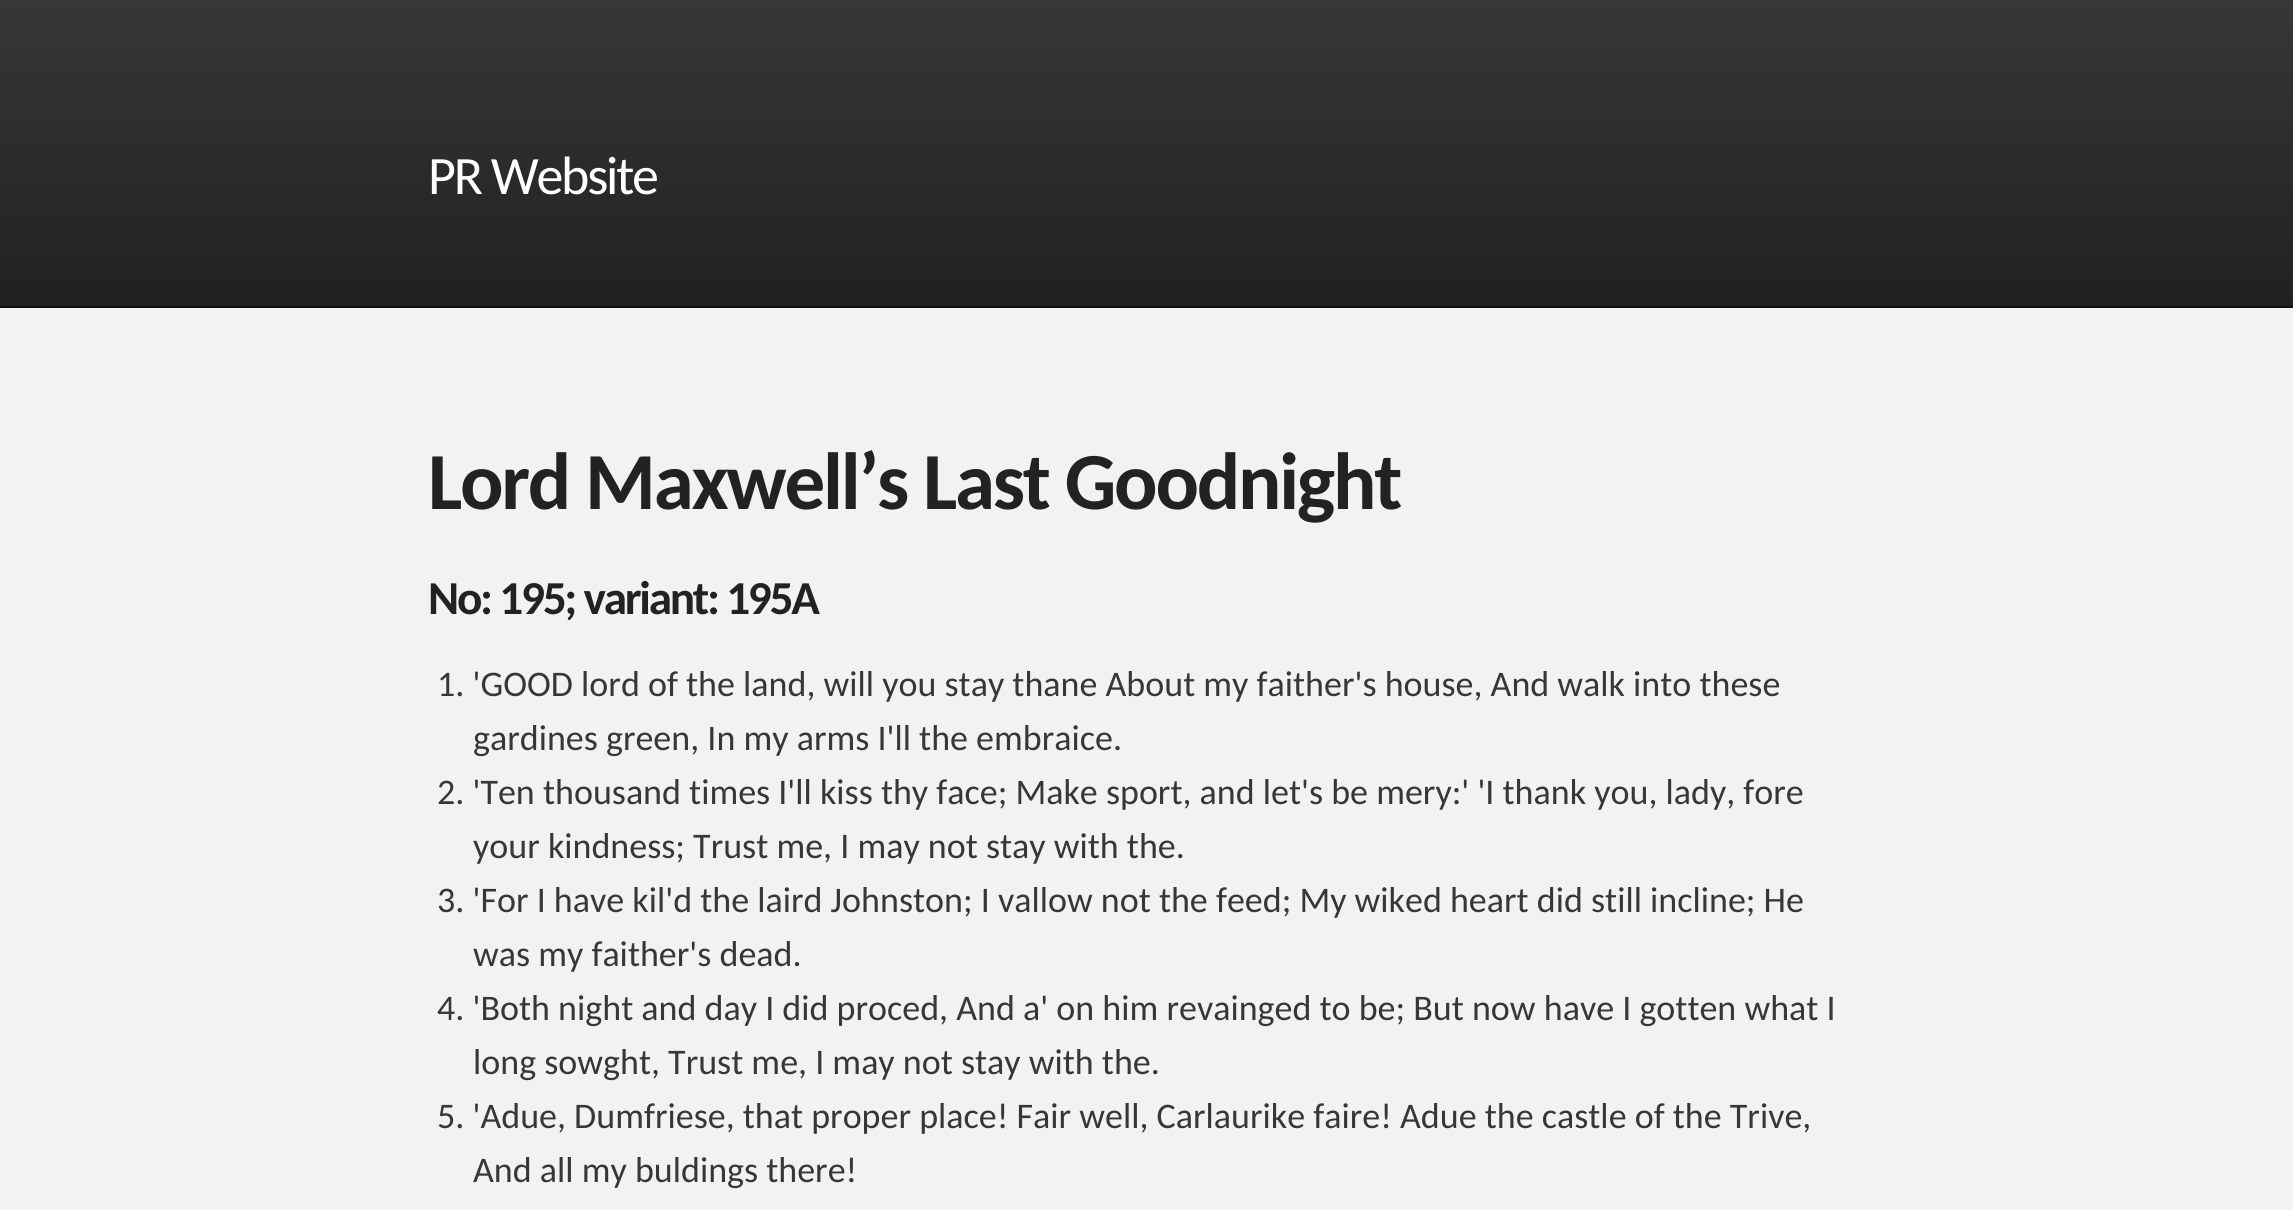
import math
import cairo

surface = cairo.ImageSurface(cairo.FORMAT_RGB24, 2293, 1210)
ctx = cairo.Context(surface)
options = cairo.FontOptions()
options.set_hint_metrics(cairo.HINT_METRICS_OFF)
options.set_hint_style(cairo.HINT_STYLE_NONE)
ctx.set_font_options(options)
ctx.set_miter_limit(4)


def spaced_text(x, y, s, letter, word):
    ctx.move_to(x, y)
    for ch in s:
        ctx.show_text(ch)
        ctx.rel_move_to(letter + word * (ch == ' '), 0)


ctx.set_source_rgb(1, 1, 1)
ctx.paint()
gradient = cairo.LinearGradient(1148, 0, 1148, 306)
gradient.add_color_stop_rgba(0, 0.216, 0.216, 0.216, 1)
gradient.add_color_stop_rgba(1, 0.129, 0.129, 0.129, 1)
ctx.set_source(gradient)
ctx.rectangle(0, 0, 2293, 306)
ctx.fill()
ctx.select_font_face("Carlito")
ctx.set_font_size(54)
ctx.set_source_rgb(1, 1, 1)
spaced_text(428, 194, "PR Website", -2.25, 0)
ctx.set_source_rgb(0.949, 0.949, 0.949)
ctx.rectangle(0, 308, 2293, 902)
ctx.fill()
ctx.set_source_rgb(0.067, 0.067, 0.067)
ctx.rectangle(0, 306, 2293, 2)
ctx.fill()
ctx.select_font_face("Carlito", cairo.FONT_SLANT_NORMAL, cairo.FONT_WEIGHT_BOLD)
ctx.set_font_size(81)
ctx.set_source_rgb(0.133, 0.133, 0.133)
spaced_text(428, 509, "Lord Maxwell’s Last Goodnight", -2.25, 0)
ctx.set_font_size(47.25)
spaced_text(428, 614, "No: 195; variant: 195A", -2.25, 0)
ctx.select_font_face("Carlito")
ctx.set_font_size(36)
ctx.set_source_rgb(0.216, 0.216, 0.216)
ctx.move_to(437, 696)
ctx.show_text("1. 'GOOD lord of the land, will you stay thane About my faither's house, And walk into these")
ctx.move_to(473, 750)
ctx.show_text("gardines green, In my arms I'll the embraice.")
ctx.move_to(437, 804)
ctx.show_text("2. 'Ten thousand times I'll kiss thy face; Make sport, and let's be mery:' 'I thank you, lady, fore")
ctx.move_to(473, 858)
ctx.show_text("your kindness; Trust me, I may not stay with the.")
ctx.move_to(437, 912)
ctx.show_text("3. 'For I have kil'd the laird Johnston; I vallow not the feed; My wiked heart did still incline; He")
ctx.move_to(473, 966)
ctx.show_text("was my faither's dead.")
ctx.move_to(437, 1020)
ctx.show_text("4. 'Both night and day I did proced, And a' on him revainged to be; But now have I gotten what I")
ctx.move_to(473, 1074)
ctx.show_text("long sowght, Trust me, I may not stay with the.")
ctx.move_to(437, 1128)
ctx.show_text("5. 'Adue, Dumfriese, that proper place! Fair well, Carlaurike faire! Adue the castle of the Trive,")
ctx.move_to(473, 1182)
ctx.show_text("And all my buldings there!")
surface.write_to_png("page.png")
